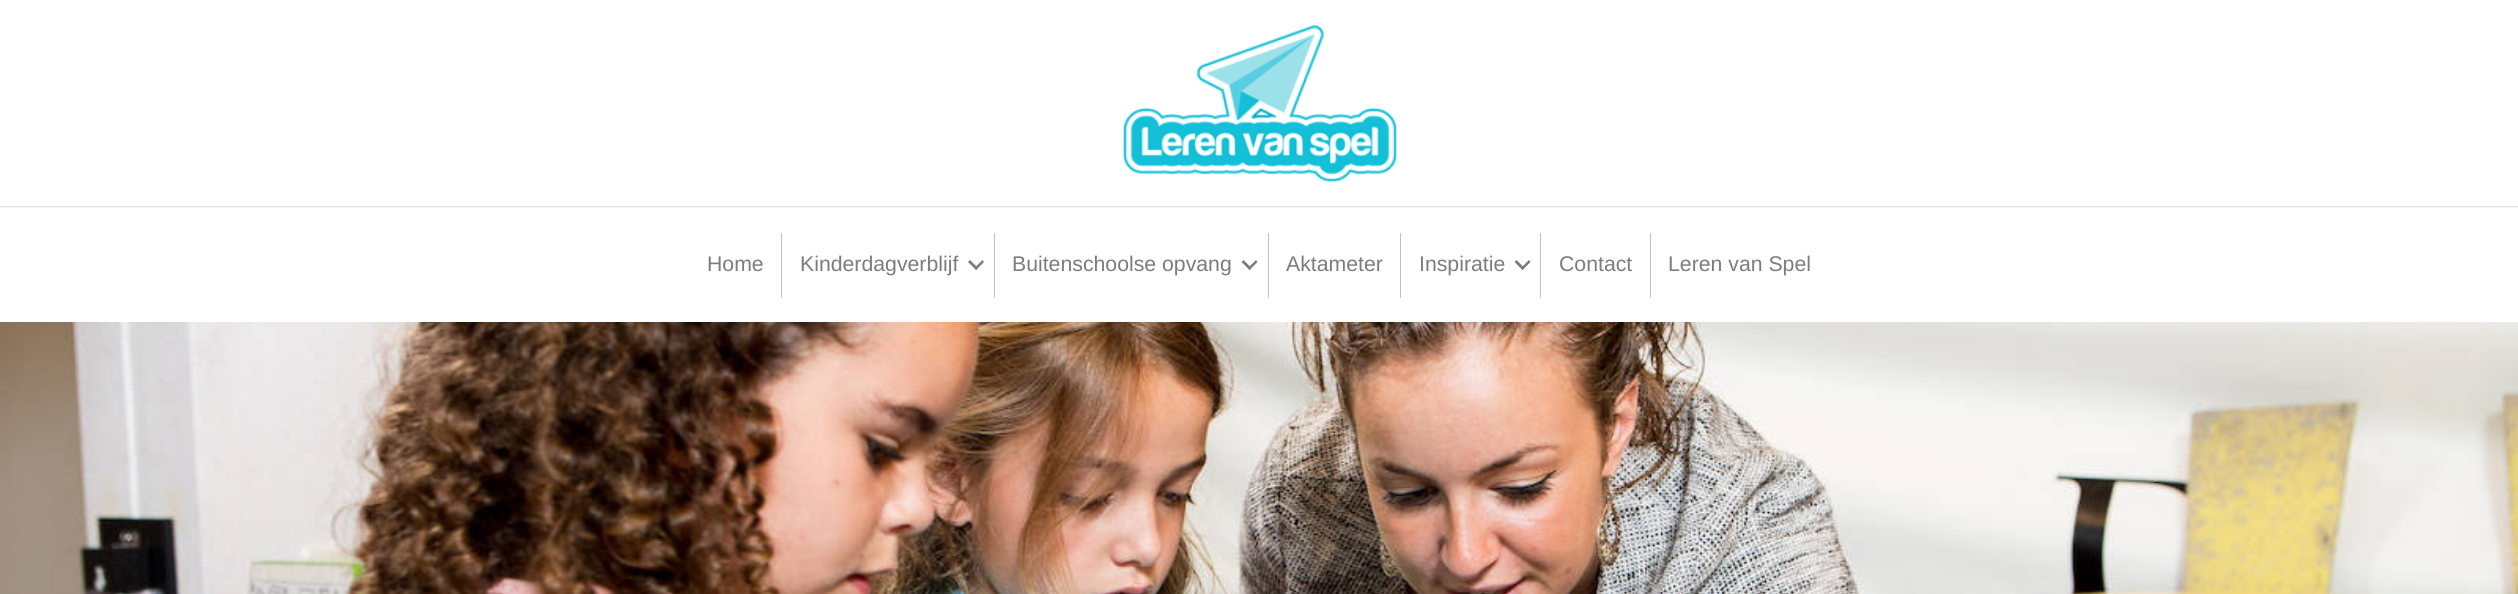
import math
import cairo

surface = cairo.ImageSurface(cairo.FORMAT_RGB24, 2518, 594)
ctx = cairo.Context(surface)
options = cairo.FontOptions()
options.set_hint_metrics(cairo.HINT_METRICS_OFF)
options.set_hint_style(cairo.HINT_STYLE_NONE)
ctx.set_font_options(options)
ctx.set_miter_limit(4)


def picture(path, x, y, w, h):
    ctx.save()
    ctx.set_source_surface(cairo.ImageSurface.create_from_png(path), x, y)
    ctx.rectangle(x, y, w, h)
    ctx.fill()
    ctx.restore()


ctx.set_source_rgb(0.949, 0.949, 0.949)
ctx.paint()
ctx.set_source_rgb(1, 1, 1)
ctx.rectangle(0, 0, 2518, 206)
ctx.fill()
picture("img1.png", 1123, 25, 274, 157)
ctx.rectangle(0, 208, 2518, 114)
ctx.fill()
ctx.set_source_rgb(0.898, 0.898, 0.898)
ctx.rectangle(0, 206, 2518, 1)
ctx.fill()
ctx.select_font_face("Liberation Sans")
ctx.set_font_size(21.25)
ctx.set_source_rgb(0.486, 0.486, 0.486)
ctx.move_to(707, 271)
ctx.show_text("Home")
ctx.set_source_rgb(0.757, 0.757, 0.757)
ctx.rectangle(781, 233, 1, 65)
ctx.fill()
ctx.set_source_rgb(0.486, 0.486, 0.486)
ctx.move_to(800, 271)
ctx.show_text("Kinderdagverblijf")
ctx.new_path()
ctx.move_to(982.5, 260)
ctx.line_to(984, 262)
ctx.line_to(976, 270)
ctx.line_to(974.5, 268)
ctx.close_path()
ctx.fill()
ctx.new_path()
ctx.move_to(970, 260)
ctx.line_to(978, 268)
ctx.line_to(976, 270)
ctx.line_to(968, 262)
ctx.close_path()
ctx.fill()
ctx.set_source_rgb(0.757, 0.757, 0.757)
ctx.rectangle(994, 233, 1, 65)
ctx.fill()
ctx.set_source_rgb(0.486, 0.486, 0.486)
ctx.move_to(1012, 271)
ctx.show_text("Buitenschoolse opvang")
ctx.new_path()
ctx.move_to(1256, 260)
ctx.line_to(1257.5, 262)
ctx.line_to(1249.5, 270)
ctx.line_to(1248, 268)
ctx.close_path()
ctx.fill()
ctx.new_path()
ctx.move_to(1243.5, 260)
ctx.line_to(1251.5, 268)
ctx.line_to(1249.5, 270)
ctx.line_to(1241.5, 262)
ctx.close_path()
ctx.fill()
ctx.set_source_rgb(0.757, 0.757, 0.757)
ctx.rectangle(1268, 233, 1, 65)
ctx.fill()
ctx.set_source_rgb(0.486, 0.486, 0.486)
ctx.move_to(1286, 271)
ctx.show_text("Aktameter")
ctx.set_source_rgb(0.757, 0.757, 0.757)
ctx.rectangle(1400, 233, 1, 65)
ctx.fill()
ctx.set_source_rgb(0.486, 0.486, 0.486)
ctx.move_to(1419, 271)
ctx.show_text("Inspiratie")
ctx.new_path()
ctx.move_to(1529, 260)
ctx.line_to(1530.5, 262)
ctx.line_to(1522.5, 270)
ctx.line_to(1521, 268)
ctx.close_path()
ctx.fill()
ctx.new_path()
ctx.move_to(1516.5, 260)
ctx.line_to(1524.5, 268)
ctx.line_to(1522.5, 270)
ctx.line_to(1514.5, 262)
ctx.close_path()
ctx.fill()
ctx.set_source_rgb(0.757, 0.757, 0.757)
ctx.rectangle(1540, 233, 1, 65)
ctx.fill()
ctx.set_source_rgb(0.486, 0.486, 0.486)
ctx.move_to(1559, 271)
ctx.show_text("Contact")
ctx.set_source_rgb(0.757, 0.757, 0.757)
ctx.rectangle(1650, 233, 1, 65)
ctx.fill()
ctx.set_source_rgb(0.486, 0.486, 0.486)
ctx.move_to(1668, 271)
ctx.show_text("Leren van Spel")
picture("img2.png", 0, 322, 2518, 272)
surface.write_to_png("page.png")
